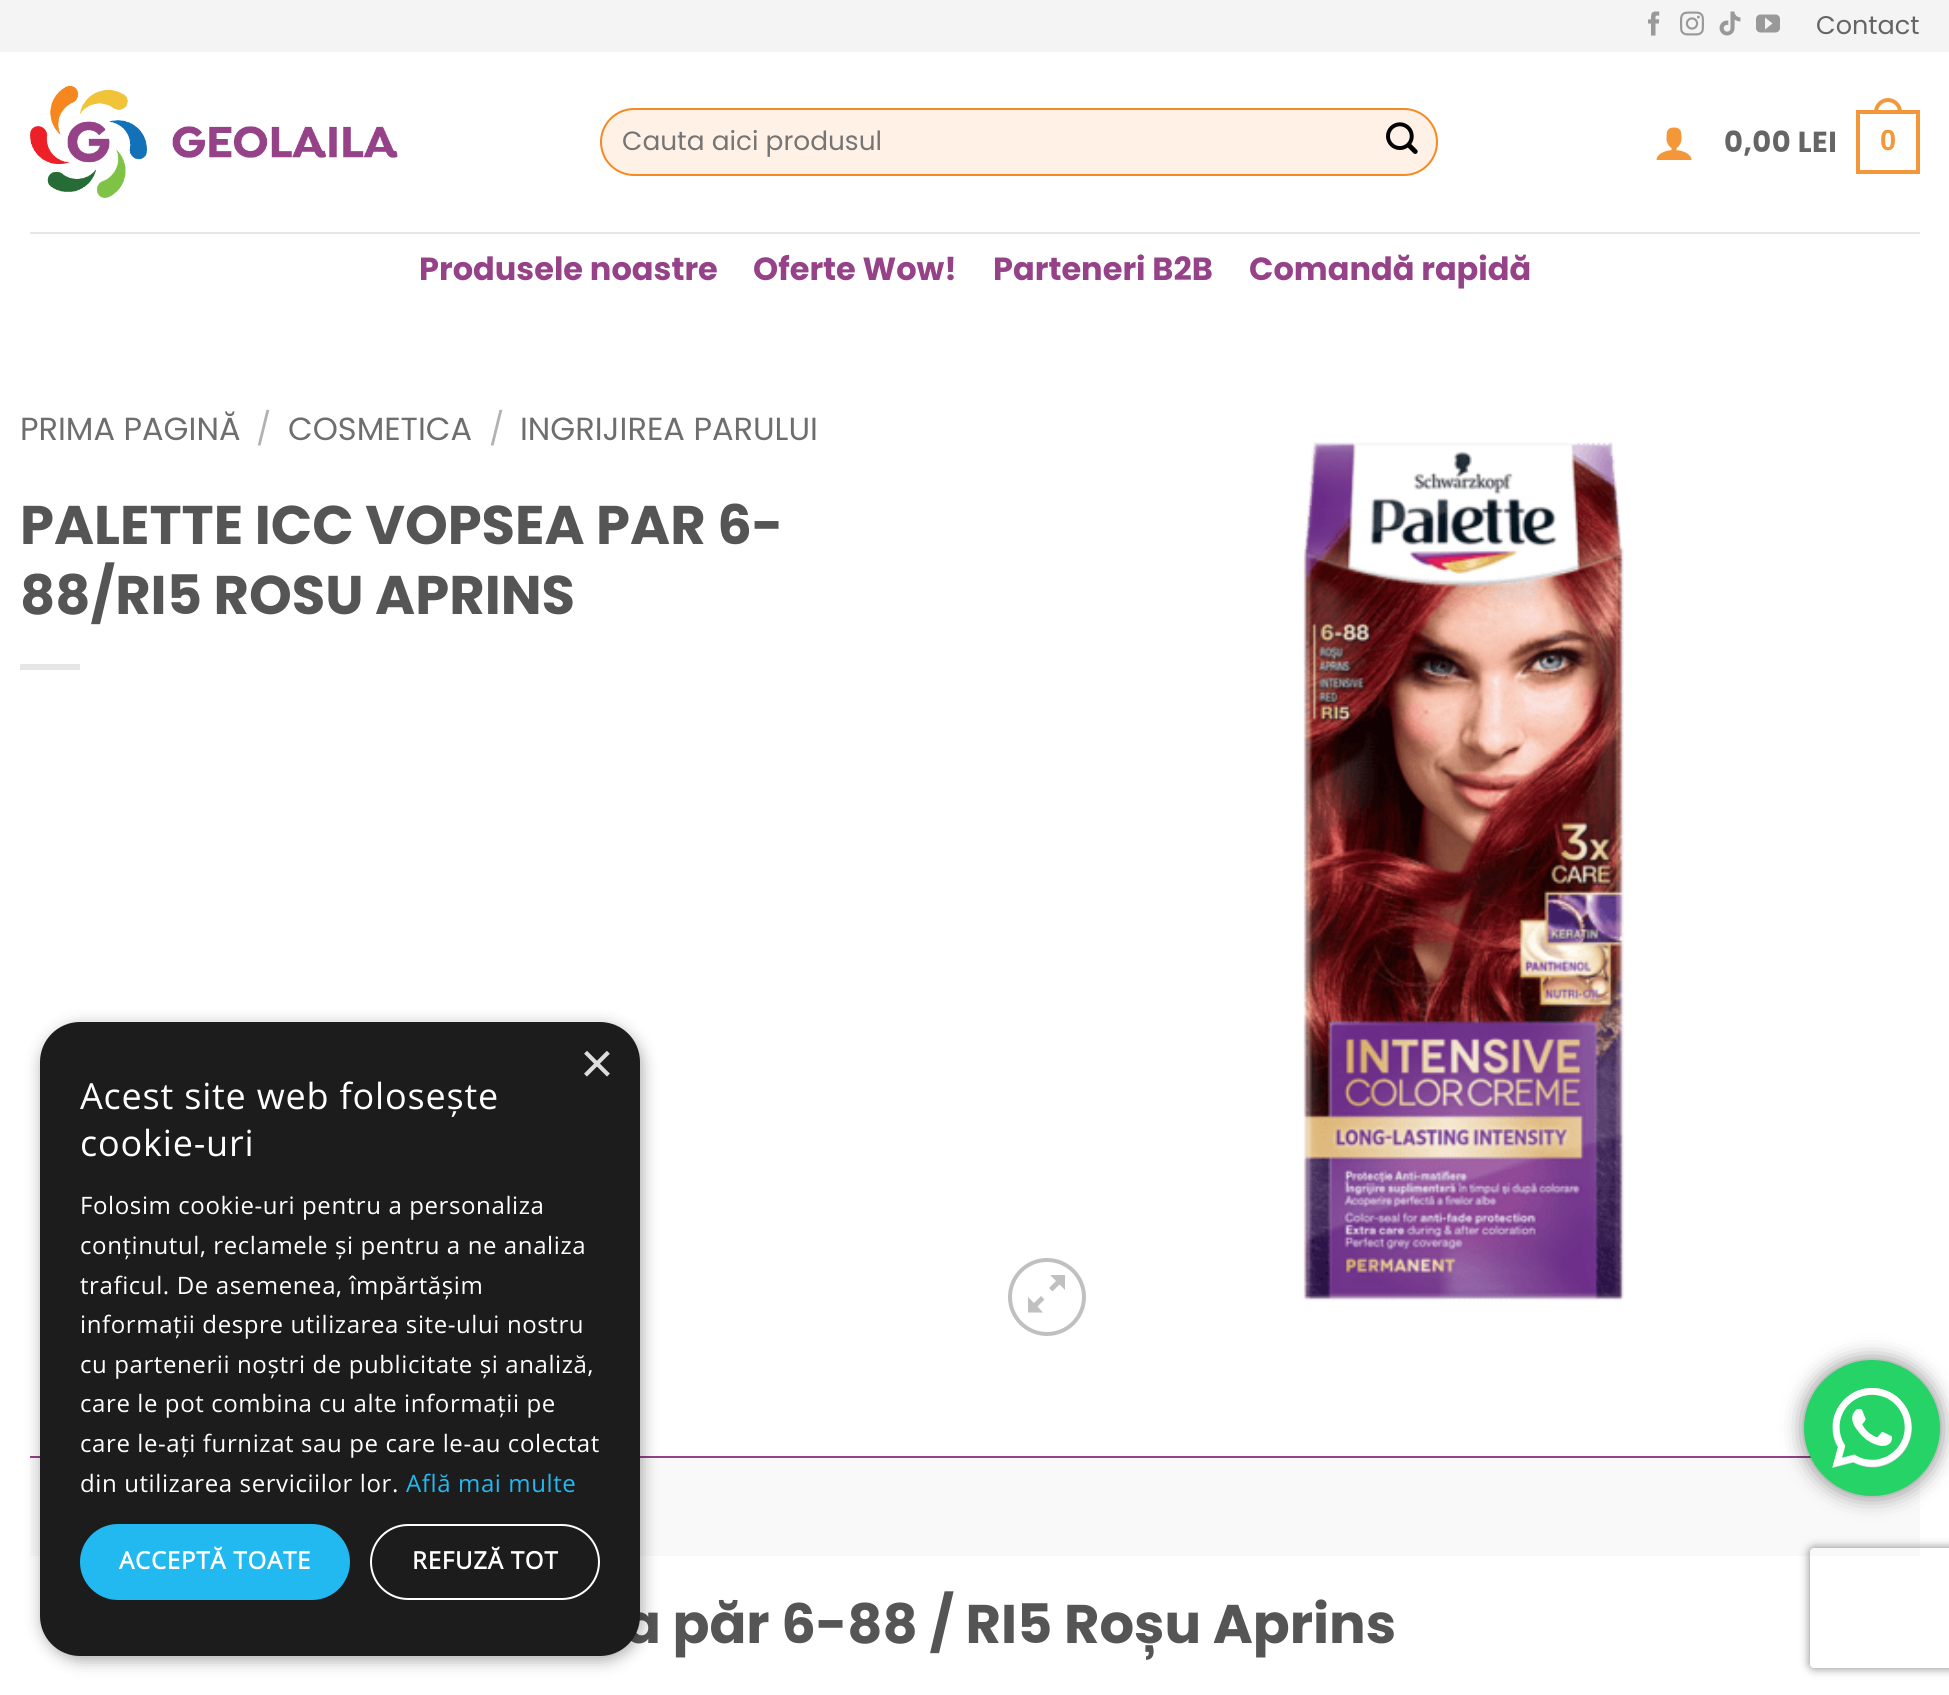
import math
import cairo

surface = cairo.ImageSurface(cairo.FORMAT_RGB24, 1949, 1695)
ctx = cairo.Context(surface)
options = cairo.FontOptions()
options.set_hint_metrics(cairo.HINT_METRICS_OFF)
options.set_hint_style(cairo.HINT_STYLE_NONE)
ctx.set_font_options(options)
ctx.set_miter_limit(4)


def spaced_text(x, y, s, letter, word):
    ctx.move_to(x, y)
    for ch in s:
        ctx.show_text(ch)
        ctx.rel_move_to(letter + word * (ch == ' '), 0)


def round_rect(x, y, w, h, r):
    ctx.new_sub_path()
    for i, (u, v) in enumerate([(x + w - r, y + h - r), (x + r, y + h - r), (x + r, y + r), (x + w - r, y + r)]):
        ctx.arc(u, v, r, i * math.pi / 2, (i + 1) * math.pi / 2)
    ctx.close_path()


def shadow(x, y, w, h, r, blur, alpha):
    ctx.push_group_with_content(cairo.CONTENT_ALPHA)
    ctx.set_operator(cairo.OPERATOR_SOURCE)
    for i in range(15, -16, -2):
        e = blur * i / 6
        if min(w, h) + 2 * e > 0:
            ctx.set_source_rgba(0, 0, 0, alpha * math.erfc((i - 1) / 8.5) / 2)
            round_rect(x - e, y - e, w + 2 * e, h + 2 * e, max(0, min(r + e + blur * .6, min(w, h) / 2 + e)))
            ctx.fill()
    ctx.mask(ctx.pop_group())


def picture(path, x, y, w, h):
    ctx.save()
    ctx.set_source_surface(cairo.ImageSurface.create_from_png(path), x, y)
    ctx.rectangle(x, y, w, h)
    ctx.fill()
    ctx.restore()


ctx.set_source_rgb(1, 1, 1)
ctx.paint()
ctx.set_source_rgb(0.957, 0.957, 0.957)
ctx.rectangle(0, 0, 1949, 52)
ctx.fill()
picture("img1.png", 1648, 11, 12, 25)
picture("img2.png", 1680, 11, 24, 25)
picture("img3.png", 1719, 11, 22, 25)
picture("img4.png", 1756, 14, 24, 19)
ctx.select_font_face("Poppins")
ctx.set_font_size(25.5)
ctx.set_source_rgb(0.396, 0.396, 0.396)
ctx.move_to(1816, 34)
ctx.show_text("Contact")
picture("img5.png", 30, 86, 368, 112)
ctx.set_source_rgb(1, 0.945, 0.902)
round_rect(601, 109, 836, 66, 33)
ctx.fill_preserve()
ctx.set_source_rgb(0.965, 0.533, 0.133)
ctx.stroke()
ctx.set_font_size(26.4)
ctx.set_source_rgb(0.459, 0.459, 0.459)
ctx.move_to(622, 150)
ctx.show_text("Cauta aici produsul")
picture("img6.png", 1386, 122, 32, 32)
picture("img7.png", 1656, 127, 36, 33)
ctx.select_font_face("Poppins", cairo.FONT_SLANT_NORMAL, cairo.FONT_WEIGHT_BOLD)
ctx.set_font_size(29)
ctx.set_source_rgb(0.396, 0.396, 0.396)
spaced_text(1724, 152, "0,00 LEI", 0.5, 0)
ctx.rectangle(1858, 112, 60, 60)
ctx.set_source_rgb(0.957, 0.592, 0.224)
ctx.set_line_width(4)
ctx.stroke()
ctx.set_fill_rule(cairo.FILL_RULE_EVEN_ODD)
ctx.new_path()
ctx.move_to(1888, 98)
ctx.curve_to(1895.5, 98, 1902, 104.5, 1902, 112)
ctx.line_to(1902, 114)
ctx.line_to(1874, 114)
ctx.line_to(1874, 112)
ctx.curve_to(1874, 104.5, 1880.5, 98, 1888, 98)
ctx.close_path()
ctx.move_to(1888, 102)
ctx.curve_to(1893.5, 102, 1898, 106.5, 1898, 112)
ctx.line_to(1898, 114)
ctx.line_to(1878, 114)
ctx.line_to(1878, 112)
ctx.curve_to(1878, 106.5, 1882.5, 102, 1888, 102)
ctx.close_path()
ctx.fill()
ctx.select_font_face("Liberation Sans", cairo.FONT_SLANT_NORMAL, cairo.FONT_WEIGHT_BOLD)
spaced_text(1880, 150, "0", 0.5, 0)
ctx.set_source_rgb(0.902, 0.902, 0.902)
ctx.rectangle(30, 232, 1890, 2)
ctx.fill()
ctx.select_font_face("Poppins", cairo.FONT_SLANT_NORMAL, cairo.FONT_WEIGHT_BOLD)
ctx.set_font_size(32)
ctx.set_source_rgb(0.584, 0.259, 0.533)
ctx.move_to(419, 280)
ctx.show_text("Produsele noastre")
ctx.move_to(753, 280)
ctx.show_text("Oferte Wow!")
ctx.move_to(993, 280)
ctx.show_text("Parteneri B2B")
ctx.move_to(1249, 280)
ctx.show_text("Comandă rapidă")
ctx.select_font_face("Poppins")
ctx.set_source_rgb(0.431, 0.431, 0.431)
ctx.move_to(20, 440)
ctx.show_text("PRIMA PAGINĂ")
ctx.set_source_rgb(0.698, 0.698, 0.698)
ctx.move_to(256, 440)
ctx.show_text("/")
ctx.set_source_rgb(0.431, 0.431, 0.431)
ctx.move_to(288, 440)
ctx.show_text("COSMETICA")
ctx.set_source_rgb(0.698, 0.698, 0.698)
ctx.move_to(489, 440)
ctx.show_text("/")
ctx.set_source_rgb(0.431, 0.431, 0.431)
ctx.move_to(520, 440)
ctx.show_text("INGRIJIREA PARULUI")
ctx.select_font_face("Poppins", cairo.FONT_SLANT_NORMAL, cairo.FONT_WEIGHT_BOLD)
ctx.set_font_size(54.4)
ctx.set_source_rgb(0.333, 0.333, 0.333)
ctx.move_to(20, 544)
ctx.show_text("PALETTE ICC VOPSEA PAR 6-")
ctx.move_to(20, 614)
ctx.show_text("88/RI5 ROSU APRINS")
ctx.set_source_rgb(0.902, 0.902, 0.902)
ctx.rectangle(20, 664, 60, 6)
ctx.fill()
ctx.arc(1047, 1297, 37, 0, 2 * math.pi)
ctx.set_source_rgb(0.753, 0.753, 0.753)
ctx.stroke()
ctx.set_fill_rule(cairo.FILL_RULE_WINDING)
ctx.new_path()
ctx.move_to(1065, 1275)
ctx.line_to(1065, 1290)
ctx.line_to(1059.5, 1284.5)
ctx.line_to(1052.5, 1291.5)
ctx.line_to(1049, 1288)
ctx.line_to(1056, 1281)
ctx.line_to(1050, 1275)
ctx.close_path()
ctx.move_to(1044.5, 1299.5)
ctx.line_to(1037.5, 1306.5)
ctx.line_to(1043, 1312.5)
ctx.line_to(1028, 1312.5)
ctx.line_to(1028, 1297)
ctx.line_to(1034, 1303)
ctx.line_to(1041, 1296)
ctx.close_path()
ctx.fill()
picture("img8.png", 1303, 442, 321, 859)
ctx.set_source_rgb(0.973, 0.973, 0.973)
ctx.rectangle(30, 1458, 1890, 98)
ctx.fill()
ctx.set_source_rgb(0.584, 0.259, 0.533)
ctx.rectangle(30, 1456, 1781, 2)
ctx.fill()
ctx.set_source_rgb(0.333, 0.333, 0.333)
ctx.move_to(624, 1643)
ctx.show_text("a păr 6-88 / RI5 Roșu Aprins")
ctx.set_source_rgb(0, 0, 0)
shadow(42, 1026, 600, 634, 40, 8, 0.35)
ctx.set_source_rgb(0.11, 0.11, 0.11)
round_rect(40, 1022, 600, 634, 40)
ctx.fill()
ctx.select_font_face("Liberation Sans")
ctx.set_font_size(58)
ctx.set_source_rgb(0.867, 0.867, 0.867)
ctx.move_to(580, 1083)
ctx.show_text("×")
ctx.select_font_face("Open Sans")
ctx.set_font_size(36)
ctx.set_source_rgb(1, 1, 1)
spaced_text(80, 1109, "Acest site web folosește", 0.8, 0)
spaced_text(80, 1156, "cookie-uri", 0.8, 0)
ctx.set_font_size(24)
spaced_text(80, 1214, "Folosim cookie-uri pentru a personaliza", 0.6, 0)
spaced_text(80, 1254, "conținutul, reclamele și pentru a ne analiza", 0.6, 0)
spaced_text(80, 1294, "traficul. De asemenea, împărtășim", 0.6, 0)
spaced_text(80, 1333, "informații despre utilizarea site-ului nostru", 0.6, 0)
spaced_text(80, 1373, "cu partenerii noștri de publicitate și analiză,", 0.6, 0)
spaced_text(80, 1412, "care le pot combina cu alte informații pe", 0.6, 0)
spaced_text(80, 1452, "care le-ați furnizat sau pe care le-au colectat", 0.6, 0)
spaced_text(80, 1492, "din utilizarea serviciilor lor.", 0.6, 0)
ctx.set_source_rgb(0.133, 0.722, 0.941)
spaced_text(406, 1492, "Află mai multe", 0.6, 0)
round_rect(80, 1524, 270, 76, 38)
ctx.fill()
ctx.select_font_face("Open Sans", cairo.FONT_SLANT_NORMAL, cairo.FONT_WEIGHT_BOLD)
ctx.set_source_rgb(1, 1, 1)
spaced_text(119, 1569, "ACCEPTĂ TOATE", 0.8, 0)
round_rect(371, 1525, 228, 74, 37)
ctx.set_line_width(2)
ctx.stroke()
spaced_text(412, 1569, "REFUZĂ TOT", 0.8, 0)
ctx.set_source_rgb(0, 0, 0)
shadow(1804, 1360, 136, 136, 68, 11, 0.5)
ctx.set_source_rgb(0.145, 0.827, 0.4)
ctx.arc(1872, 1428, 68, 0, 2 * math.pi)
ctx.fill()
picture("img9.png", 1832, 1388, 80, 80)
ctx.save()
ctx.set_fill_rule(cairo.FILL_RULE_EVEN_ODD)
ctx.new_path()
ctx.move_to(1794, 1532)
ctx.line_to(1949, 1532)
ctx.line_to(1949, 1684)
ctx.line_to(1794, 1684)
ctx.close_path()
ctx.move_to(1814, 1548)
ctx.line_to(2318, 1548)
ctx.curve_to(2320, 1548, 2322, 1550, 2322, 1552)
ctx.line_to(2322, 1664)
ctx.curve_to(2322, 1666, 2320, 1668, 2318, 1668)
ctx.line_to(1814, 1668)
ctx.curve_to(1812, 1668, 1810, 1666, 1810, 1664)
ctx.line_to(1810, 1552)
ctx.curve_to(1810, 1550, 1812, 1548, 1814, 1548)
ctx.close_path()
ctx.clip()
ctx.set_source_rgb(0.502, 0.502, 0.502)
shadow(1810, 1548, 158, 120, 4, 5, 1)
ctx.restore()
surface.write_to_png("page.png")
